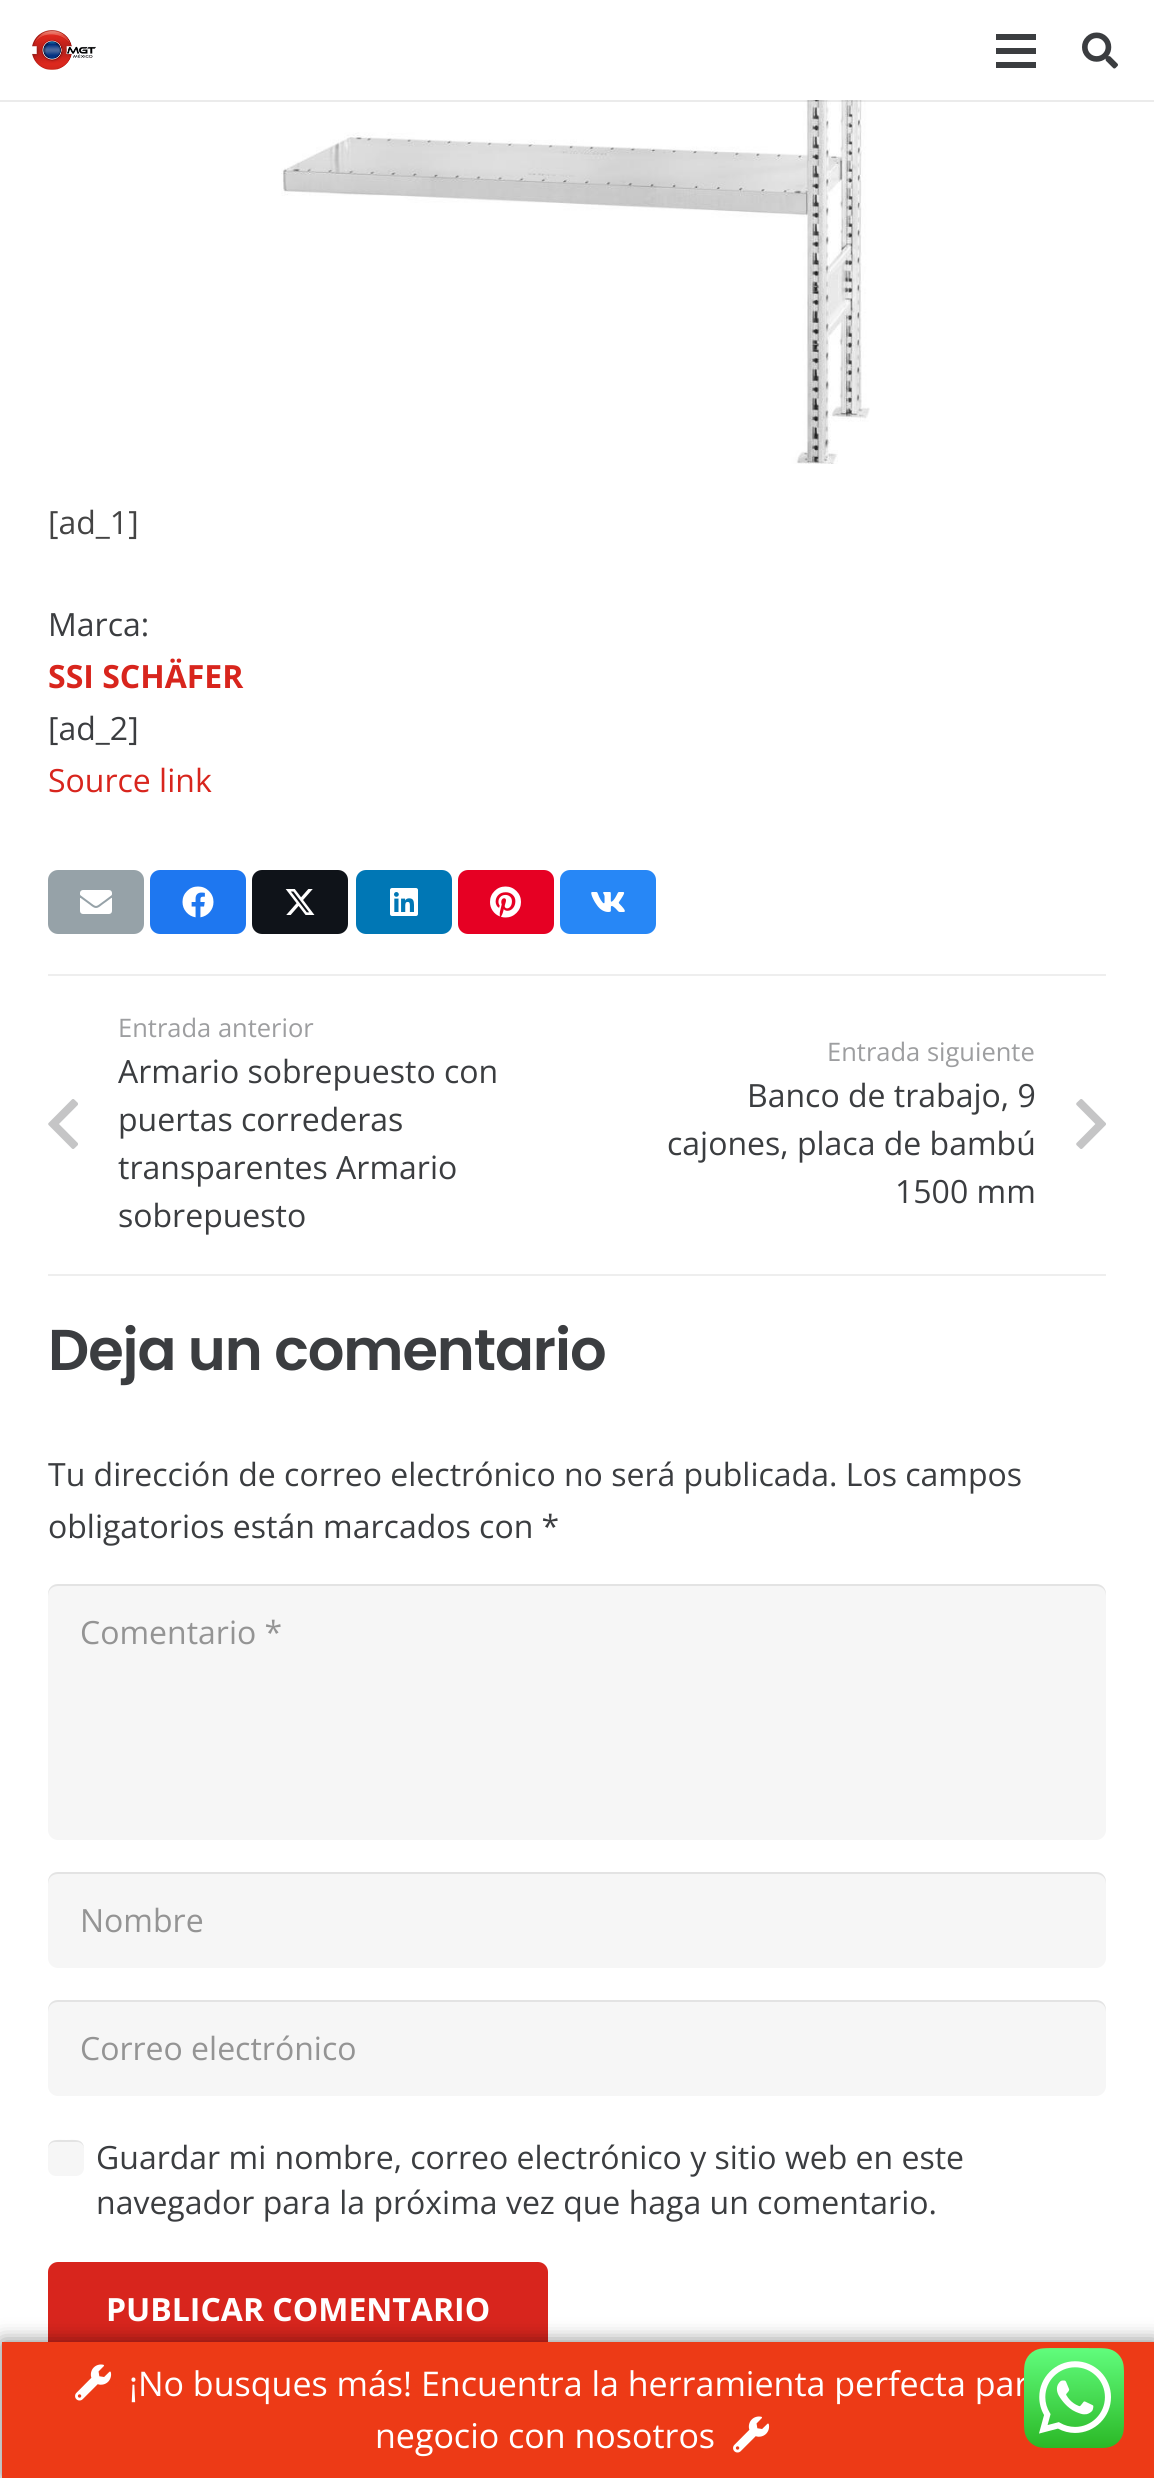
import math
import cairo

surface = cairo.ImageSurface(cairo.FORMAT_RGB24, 1154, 2478)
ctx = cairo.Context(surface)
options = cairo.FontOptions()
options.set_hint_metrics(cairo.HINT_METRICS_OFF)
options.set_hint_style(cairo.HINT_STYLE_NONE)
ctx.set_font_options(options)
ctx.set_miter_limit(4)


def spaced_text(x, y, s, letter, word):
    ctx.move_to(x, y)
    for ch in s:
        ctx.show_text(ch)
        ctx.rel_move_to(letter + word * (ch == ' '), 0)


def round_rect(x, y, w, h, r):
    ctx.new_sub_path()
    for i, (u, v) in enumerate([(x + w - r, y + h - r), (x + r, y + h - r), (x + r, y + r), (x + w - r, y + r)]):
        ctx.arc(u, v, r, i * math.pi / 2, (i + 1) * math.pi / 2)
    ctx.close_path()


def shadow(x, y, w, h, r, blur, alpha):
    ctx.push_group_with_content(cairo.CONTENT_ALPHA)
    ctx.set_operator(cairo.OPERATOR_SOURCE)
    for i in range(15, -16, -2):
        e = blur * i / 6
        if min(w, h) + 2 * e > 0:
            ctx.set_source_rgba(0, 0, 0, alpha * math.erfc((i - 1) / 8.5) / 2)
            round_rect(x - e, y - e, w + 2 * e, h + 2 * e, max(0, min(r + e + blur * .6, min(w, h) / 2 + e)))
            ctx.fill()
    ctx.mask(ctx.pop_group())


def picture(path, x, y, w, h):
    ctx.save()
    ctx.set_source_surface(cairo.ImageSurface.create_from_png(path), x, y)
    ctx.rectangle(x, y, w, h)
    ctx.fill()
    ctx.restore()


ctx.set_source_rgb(1, 1, 1)
ctx.paint()
picture("img3.png", 281, 100, 589, 364)
ctx.set_source_rgba(0, 0, 0, 0.08)
ctx.rectangle(0, 100, 1154, 2)
ctx.fill()
picture("img1.png", 32, 30, 64, 40)
ctx.set_source_rgb(0.231, 0.239, 0.251)
ctx.rectangle(996, 48, 40, 6)
ctx.fill()
ctx.rectangle(996, 34, 40, 6)
ctx.fill()
ctx.rectangle(996, 62, 40, 6)
ctx.fill()
picture("img2.png", 1082, 32, 36, 37)
ctx.select_font_face("Open Sans")
ctx.set_font_size(32)
ctx.set_source_rgb(0.267, 0.267, 0.267)
ctx.move_to(48, 534)
ctx.show_text("[ad_1]")
ctx.set_source_rgb(0.231, 0.239, 0.251)
ctx.move_to(48, 636)
ctx.show_text("Marca:")
ctx.select_font_face("Open Sans", cairo.FONT_SLANT_NORMAL, cairo.FONT_WEIGHT_BOLD)
ctx.set_source_rgb(0.847, 0.145, 0.114)
ctx.move_to(48, 688)
ctx.show_text("SSI SCHÄFER")
ctx.select_font_face("Open Sans")
ctx.set_source_rgb(0.231, 0.239, 0.251)
ctx.move_to(48, 740)
ctx.show_text("[ad_2]")
ctx.set_source_rgb(0.847, 0.145, 0.114)
ctx.move_to(48, 792)
ctx.show_text("Source link")
ctx.set_source_rgb(0.588, 0.635, 0.659)
round_rect(48, 870, 96, 64, 10)
ctx.fill()
picture("img4.png", 80, 890, 32, 24)
ctx.set_source_rgb(0.118, 0.467, 0.941)
round_rect(150, 870, 96, 64, 10)
ctx.fill()
picture("img5.png", 182, 886, 32, 32)
ctx.set_source_rgb(0.059, 0.078, 0.098)
round_rect(252, 870, 96, 64, 10)
ctx.fill()
picture("img6.png", 285, 889, 30, 26)
ctx.set_source_rgb(0, 0.467, 0.71)
round_rect(356, 870, 96, 64, 10)
ctx.fill()
picture("img7.png", 390, 888, 28, 28)
ctx.set_source_rgb(0.902, 0, 0.137)
round_rect(458, 870, 96, 64, 10)
ctx.fill()
picture("img8.png", 490, 886, 31, 32)
ctx.set_source_rgb(0.153, 0.529, 0.961)
round_rect(560, 870, 96, 64, 10)
ctx.fill()
picture("img9.png", 591, 892, 34, 20)
ctx.set_source_rgb(0.933, 0.933, 0.933)
ctx.rectangle(48, 974, 1058, 2)
ctx.fill()
ctx.set_font_size(25.5)
ctx.set_source_rgb(0.616, 0.62, 0.627)
ctx.move_to(118, 1037)
ctx.show_text("Entrada anterior")
picture("img10.png", 48, 1099, 30, 50)
ctx.set_font_size(32)
ctx.set_source_rgb(0.231, 0.239, 0.251)
ctx.move_to(118, 1083)
ctx.show_text("Armario sobrepuesto con")
ctx.move_to(118, 1131)
ctx.show_text("puertas correderas")
ctx.move_to(118, 1179)
ctx.show_text("transparentes Armario")
ctx.move_to(118, 1227)
ctx.show_text("sobrepuesto")
ctx.set_font_size(25.5)
ctx.set_source_rgb(0.616, 0.62, 0.627)
ctx.move_to(827, 1061)
ctx.show_text("Entrada siguiente")
ctx.set_font_size(32)
ctx.set_source_rgb(0.231, 0.239, 0.251)
ctx.move_to(747, 1107)
ctx.show_text("Banco de trabajo, 9")
ctx.move_to(667, 1155)
ctx.show_text("cajones, placa de bambú")
ctx.move_to(895, 1203)
ctx.show_text("1500 mm")
picture("img11.png", 1076, 1099, 30, 50)
ctx.set_source_rgb(0.933, 0.933, 0.933)
ctx.rectangle(48, 1274, 1058, 2)
ctx.fill()
ctx.select_font_face("Poppins SemiBold")
ctx.set_font_size(57.5)
ctx.set_source_rgb(0.231, 0.239, 0.251)
spaced_text(48, 1370, "Deja un comentario", -1.1, 0)
ctx.select_font_face("Open Sans")
ctx.set_font_size(32)
ctx.move_to(48, 1486)
ctx.show_text("Tu dirección de correo electrónico no será publicada. Los campos")
ctx.move_to(48, 1538)
ctx.show_text("obligatorios están marcados con *")
ctx.set_source_rgb(0.961, 0.961, 0.961)
round_rect(48, 1584, 1058, 256, 10)
ctx.fill()
ctx.set_source_rgba(0, 0, 0, 0.08)
ctx.new_path()
ctx.move_to(58, 1586)
ctx.line_to(1096, 1586)
ctx.curve_to(1102, 1586, 1106, 1590, 1106, 1596)
ctx.line_to(1106, 1594)
ctx.curve_to(1106, 1588, 1102, 1584, 1096, 1584)
ctx.line_to(58, 1584)
ctx.curve_to(52, 1584, 48, 1588, 48, 1594)
ctx.line_to(48, 1596)
ctx.curve_to(48, 1590, 52, 1586, 58, 1586)
ctx.close_path()
ctx.fill()
ctx.set_source_rgb(0.58, 0.58, 0.58)
ctx.move_to(80, 1644)
ctx.show_text("Comentario *")
ctx.set_source_rgb(0.961, 0.961, 0.961)
round_rect(48, 1872, 1058, 96, 10)
ctx.fill()
ctx.set_source_rgba(0, 0, 0, 0.08)
ctx.new_path()
ctx.move_to(58, 1874)
ctx.line_to(1096, 1874)
ctx.curve_to(1102, 1874, 1106, 1878, 1106, 1884)
ctx.line_to(1106, 1882)
ctx.curve_to(1106, 1876, 1102, 1872, 1096, 1872)
ctx.line_to(58, 1872)
ctx.curve_to(52, 1872, 48, 1876, 48, 1882)
ctx.line_to(48, 1884)
ctx.curve_to(48, 1878, 52, 1874, 58, 1874)
ctx.close_path()
ctx.fill()
ctx.set_source_rgb(0.58, 0.58, 0.58)
ctx.move_to(80, 1932)
ctx.show_text("Nombre")
ctx.set_source_rgb(0.961, 0.961, 0.961)
round_rect(48, 2000, 1058, 96, 10)
ctx.fill()
ctx.set_source_rgba(0, 0, 0, 0.08)
ctx.new_path()
ctx.move_to(58, 2002)
ctx.line_to(1096, 2002)
ctx.curve_to(1102, 2002, 1106, 2006, 1106, 2012)
ctx.line_to(1106, 2010)
ctx.curve_to(1106, 2004, 1102, 2000, 1096, 2000)
ctx.line_to(58, 2000)
ctx.curve_to(52, 2000, 48, 2004, 48, 2010)
ctx.line_to(48, 2012)
ctx.curve_to(48, 2006, 52, 2002, 58, 2002)
ctx.close_path()
ctx.fill()
ctx.set_source_rgb(0.58, 0.58, 0.58)
ctx.move_to(80, 2060)
ctx.show_text("Correo electrónico")
ctx.set_source_rgb(0.961, 0.961, 0.961)
round_rect(48, 2140, 36, 36, 8)
ctx.fill()
ctx.set_source_rgba(0, 0, 0, 0.08)
ctx.new_path()
ctx.move_to(55, 2142)
ctx.line_to(77, 2142)
ctx.curve_to(81, 2142, 84, 2145, 84, 2149)
ctx.curve_to(84, 2138, 73.5, 2140, 66, 2140)
ctx.curve_to(58.5, 2140, 48, 2138, 48, 2149)
ctx.curve_to(48, 2145, 51, 2142, 55, 2142)
ctx.close_path()
ctx.fill()
ctx.set_source_rgb(0.231, 0.239, 0.251)
ctx.move_to(96, 2169)
ctx.show_text("Guardar mi nombre, correo electrónico y sitio web en este")
ctx.move_to(96, 2214)
ctx.show_text("navegador para la próxima vez que haga un comentario.")
ctx.set_source_rgb(0.847, 0.145, 0.114)
round_rect(48, 2262, 500, 96, 10)
ctx.fill()
ctx.select_font_face("Open Sans", cairo.FONT_SLANT_NORMAL, cairo.FONT_WEIGHT_BOLD)
ctx.set_source_rgb(1, 1, 1)
ctx.move_to(106, 2321)
ctx.show_text("PUBLICAR COMENTARIO")
ctx.set_source_rgb(0, 0, 0)
shadow(2, 2342, 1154, 136, 0, 10, 0.5)
ctx.set_source_rgb(0.929, 0.227, 0.086)
ctx.rectangle(2, 2342, 1152, 136)
ctx.fill()
picture("img12.png", 75, 2364, 37, 37)
ctx.select_font_face("Open Sans")
ctx.set_font_size(34)
ctx.set_source_rgb(1, 1, 1)
ctx.move_to(129, 2396)
ctx.show_text("¡No busques más! Encuentra la herramienta perfecta par")
ctx.move_to(375, 2448)
ctx.show_text("negocio con nosotros")
picture("img12.png", 733, 2416, 37, 37)
picture("img13.png", 1024, 2348, 100, 100)
surface.write_to_png("page.png")
